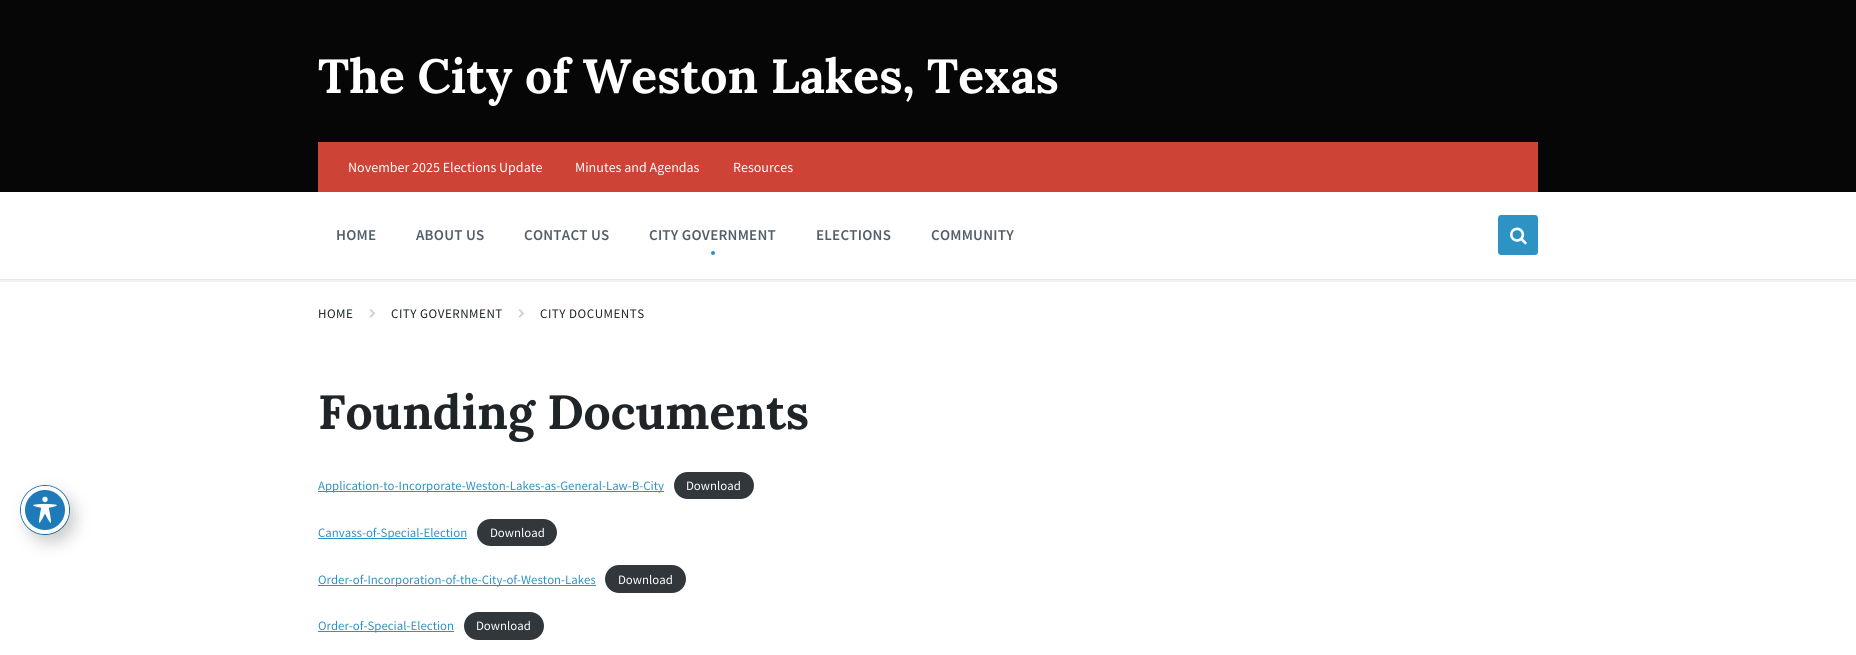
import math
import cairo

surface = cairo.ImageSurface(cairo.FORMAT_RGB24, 1856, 655)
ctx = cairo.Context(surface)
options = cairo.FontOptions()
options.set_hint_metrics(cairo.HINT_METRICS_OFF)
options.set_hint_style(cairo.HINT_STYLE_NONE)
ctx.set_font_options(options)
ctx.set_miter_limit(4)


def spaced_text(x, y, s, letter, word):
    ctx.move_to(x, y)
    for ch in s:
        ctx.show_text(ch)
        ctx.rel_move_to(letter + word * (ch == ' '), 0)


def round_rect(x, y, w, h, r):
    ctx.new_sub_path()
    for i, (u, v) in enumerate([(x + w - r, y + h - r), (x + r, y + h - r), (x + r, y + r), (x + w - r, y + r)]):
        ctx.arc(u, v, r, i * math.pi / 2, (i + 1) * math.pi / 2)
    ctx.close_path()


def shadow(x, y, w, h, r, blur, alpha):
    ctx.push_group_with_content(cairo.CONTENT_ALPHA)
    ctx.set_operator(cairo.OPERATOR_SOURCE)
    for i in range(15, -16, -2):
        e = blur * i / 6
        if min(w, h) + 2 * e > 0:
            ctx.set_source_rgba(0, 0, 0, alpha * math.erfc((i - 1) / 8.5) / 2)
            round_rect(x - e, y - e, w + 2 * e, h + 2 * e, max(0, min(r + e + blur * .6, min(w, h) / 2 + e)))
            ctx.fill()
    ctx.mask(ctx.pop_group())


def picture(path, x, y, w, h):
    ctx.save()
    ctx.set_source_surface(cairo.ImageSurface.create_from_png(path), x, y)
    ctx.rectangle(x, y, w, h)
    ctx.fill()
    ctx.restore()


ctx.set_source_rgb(1, 1, 1)
ctx.paint()
ctx.arc(45, 510, 24.5, 0, 2 * math.pi)
ctx.set_source_rgb(0.118, 0.478, 0.725)
ctx.set_line_width(1)
ctx.stroke()
ctx.set_source_rgb(0, 0, 0)
shadow(27, 494, 48, 48, 24, 8, 0.2)
ctx.set_source_rgb(0.118, 0.478, 0.725)
ctx.arc(45, 510, 22, 0, 2 * math.pi)
ctx.fill_preserve()
ctx.set_source_rgb(1, 1, 1)
ctx.set_line_width(4)
ctx.stroke()
picture("img1.png", 33, 496, 24, 27)
ctx.rectangle(-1, 191, 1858, 90)
ctx.set_source_rgb(0.949, 0.949, 0.949)
ctx.set_line_width(2)
ctx.stroke()
ctx.set_source_rgb(0.024, 0.027, 0.031)
ctx.rectangle(0, 0, 1856, 192)
ctx.fill()
ctx.select_font_face("Lora", cairo.FONT_SLANT_NORMAL, cairo.FONT_WEIGHT_BOLD)
ctx.set_font_size(48)
ctx.set_source_rgb(1, 1, 1)
ctx.move_to(318, 93)
ctx.show_text("The City of Weston Lakes, Texas")
ctx.set_source_rgb(0.804, 0.263, 0.208)
ctx.rectangle(318, 142, 1220, 50)
ctx.fill()
ctx.select_font_face("Source Sans Pro")
ctx.set_font_size(14)
ctx.set_source_rgb(1, 1, 1)
ctx.move_to(348, 172)
ctx.show_text("November 2025 Elections Update")
ctx.move_to(575, 172)
ctx.show_text("Minutes and Agendas")
ctx.move_to(733, 172)
ctx.show_text("Resources")
ctx.set_source_rgb(0.902, 0.902, 0.902)
ctx.rectangle(0, 279, 1856, 1)
ctx.fill()
ctx.select_font_face("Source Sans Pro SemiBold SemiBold")
ctx.set_font_size(15)
ctx.set_source_rgb(0.329, 0.369, 0.412)
spaced_text(336, 240, "HOME", 0.25, 0)
spaced_text(416, 240, "ABOUT US", 0.25, 0)
spaced_text(524, 240, "CONTACT US", 0.25, 0)
spaced_text(649, 240, "CITY GOVERNMENT", 0.25, 0)
ctx.set_source_rgb(0.176, 0.576, 0.773)
ctx.new_path()
ctx.arc(713, 253, 2, 0, 2 * math.pi)
ctx.fill()
ctx.set_source_rgb(0.329, 0.369, 0.412)
spaced_text(816, 240, "ELECTIONS", 0.25, 0)
spaced_text(931, 240, "COMMUNITY", 0.25, 0)
ctx.set_source_rgb(0.176, 0.576, 0.773)
round_rect(1498, 215, 40, 40, 3)
ctx.fill()
picture("img2.png", 1510, 227, 17, 18)
ctx.select_font_face("Source Sans Pro")
ctx.set_font_size(13)
ctx.set_source_rgb(0.118, 0.141, 0.153)
spaced_text(318, 318, "HOME", 0.5, 0)
picture("img3.png", 369, 309, 7, 9)
spaced_text(391, 318, "CITY GOVERNMENT", 0.5, 0)
picture("img3.png", 518, 309, 7, 9)
spaced_text(540, 318, "CITY DOCUMENTS", 0.5, 0)
ctx.select_font_face("Lora", cairo.FONT_SLANT_NORMAL, cairo.FONT_WEIGHT_BOLD)
ctx.set_font_size(48)
ctx.move_to(318, 429)
ctx.show_text("Founding Documents")
ctx.set_source_rgb(0.176, 0.576, 0.773)
ctx.rectangle(318, 491, 346, 1)
ctx.fill()
ctx.select_font_face("Source Sans Pro")
ctx.set_font_size(12.8)
ctx.move_to(318, 490)
ctx.show_text("Application-to-Incorporate-Weston-Lakes-as-General-Law-B-City")
ctx.set_source_rgb(0.196, 0.216, 0.235)
round_rect(674, 472, 80, 27, 13.5)
ctx.fill()
ctx.set_source_rgb(1, 1, 1)
ctx.move_to(686, 490)
ctx.show_text("Download")
ctx.set_source_rgb(0.176, 0.576, 0.773)
ctx.rectangle(318, 538, 149, 1)
ctx.fill()
ctx.move_to(318, 537)
ctx.show_text("Canvass-of-Special-Election")
ctx.set_source_rgb(0.196, 0.216, 0.235)
round_rect(477, 519, 80, 27, 13.5)
ctx.fill()
ctx.set_source_rgb(1, 1, 1)
ctx.move_to(490, 537)
ctx.show_text("Download")
ctx.set_source_rgb(0.176, 0.576, 0.773)
ctx.rectangle(318, 585, 278, 1)
ctx.fill()
ctx.move_to(318, 584)
ctx.show_text("Order-of-Incorporation-of-the-City-of-Weston-Lakes")
ctx.set_source_rgb(0.196, 0.216, 0.235)
round_rect(605, 565, 81, 28, 14)
ctx.fill()
ctx.set_source_rgb(1, 1, 1)
ctx.move_to(618, 584)
ctx.show_text("Download")
ctx.set_source_rgb(0.176, 0.576, 0.773)
ctx.rectangle(318, 631, 136, 1)
ctx.fill()
ctx.move_to(318, 630)
ctx.show_text("Order-of-Special-Election")
ctx.set_source_rgb(0.196, 0.216, 0.235)
round_rect(464, 612, 80, 28, 14)
ctx.fill()
ctx.set_source_rgb(1, 1, 1)
ctx.move_to(476, 630)
ctx.show_text("Download")
surface.write_to_png("page.png")
